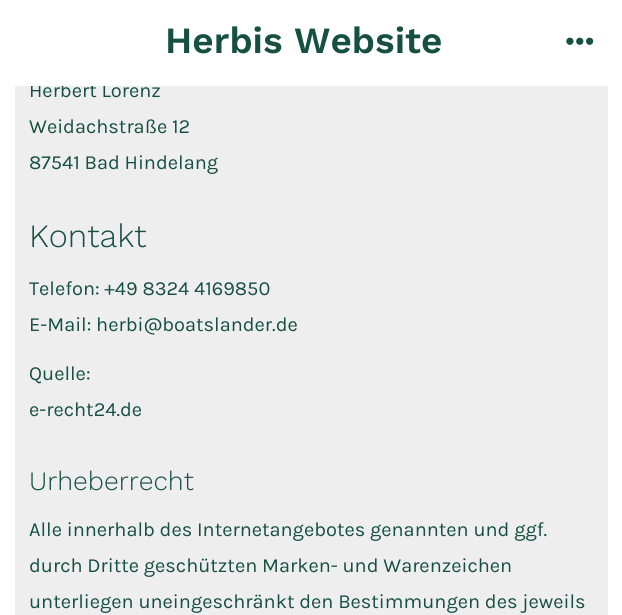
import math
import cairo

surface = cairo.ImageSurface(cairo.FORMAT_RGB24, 622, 615)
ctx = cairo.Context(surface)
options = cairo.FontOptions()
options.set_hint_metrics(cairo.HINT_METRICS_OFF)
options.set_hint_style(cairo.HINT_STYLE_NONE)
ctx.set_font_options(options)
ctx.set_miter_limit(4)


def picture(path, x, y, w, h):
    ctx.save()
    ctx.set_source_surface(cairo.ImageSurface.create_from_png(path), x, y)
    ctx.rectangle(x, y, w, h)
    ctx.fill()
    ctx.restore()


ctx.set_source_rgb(0.933, 0.933, 0.933)
ctx.paint()
ctx.set_source_rgb(1, 1, 1)
ctx.rectangle(608, 0, 14, 615)
ctx.fill()
ctx.rectangle(0, 0, 15, 615)
ctx.fill()
ctx.select_font_face("Karla")
ctx.set_font_size(20)
ctx.set_source_rgb(0.086, 0.314, 0.263)
ctx.move_to(29, 97)
ctx.show_text("Herbert Lorenz")
ctx.set_source_rgb(1, 1, 1)
ctx.rectangle(15, 0, 593, 86)
ctx.fill()
ctx.select_font_face("Work Sans SemiBold")
ctx.set_font_size(37)
ctx.set_source_rgb(0.086, 0.314, 0.263)
ctx.move_to(165, 53)
ctx.show_text("Herbis Website")
picture("img1.png", 566, 37, 28, 8)
ctx.select_font_face("Karla")
ctx.set_font_size(20)
ctx.move_to(29, 133)
ctx.show_text("Weidachstraße 12")
ctx.move_to(29, 169)
ctx.show_text("87541 Bad Hindelang")
ctx.select_font_face("Work Sans Light")
ctx.set_font_size(32.5)
ctx.move_to(29, 247)
ctx.show_text("Kontakt")
ctx.select_font_face("Karla")
ctx.set_font_size(20)
ctx.move_to(29, 295)
ctx.show_text("Telefon: +49 8324 4169850")
ctx.move_to(29, 331)
ctx.show_text("E-Mail: herbi@boatslander.de")
ctx.move_to(29, 380)
ctx.show_text("Quelle:")
ctx.move_to(29, 416)
ctx.show_text("e-recht24.de")
ctx.select_font_face("Work Sans Light")
ctx.set_font_size(26.5)
ctx.move_to(29, 490)
ctx.show_text("Urheberrecht")
ctx.select_font_face("Karla")
ctx.set_font_size(20)
ctx.move_to(29, 536)
ctx.show_text("Alle innerhalb des Internetangebotes genannten und ggf.")
ctx.move_to(29, 572)
ctx.show_text("durch Dritte geschützten Marken- und Warenzeichen")
ctx.move_to(29, 608)
ctx.show_text("unterliegen uneingeschränkt den Bestimmungen des jeweils")
surface.write_to_png("page.png")
